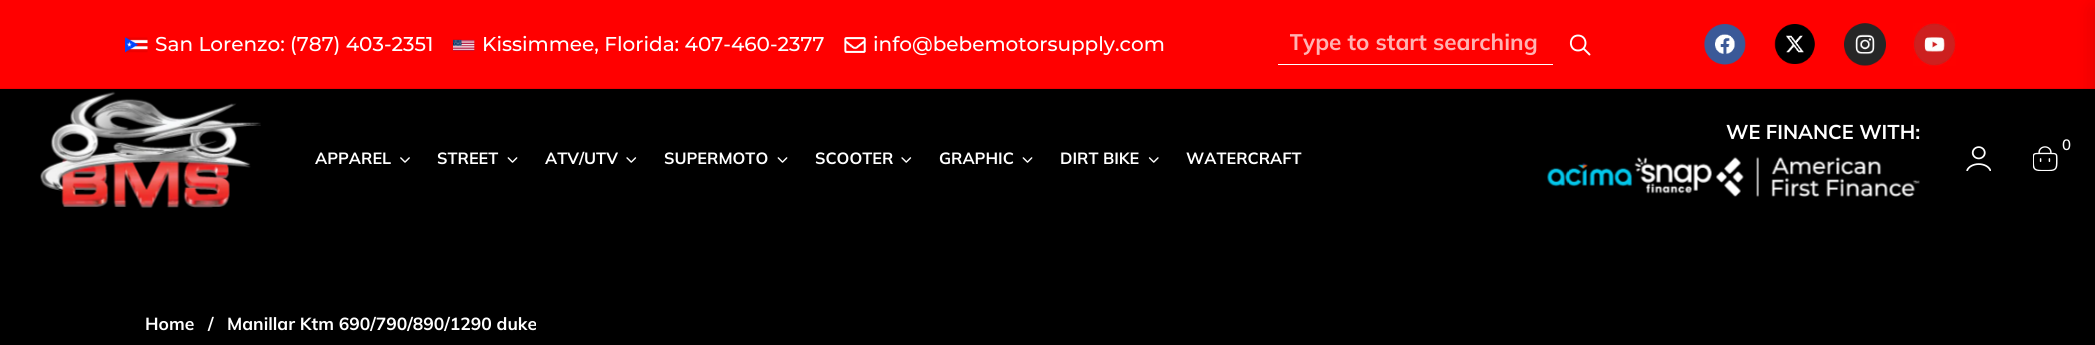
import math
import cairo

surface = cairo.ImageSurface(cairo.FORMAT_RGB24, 2095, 345)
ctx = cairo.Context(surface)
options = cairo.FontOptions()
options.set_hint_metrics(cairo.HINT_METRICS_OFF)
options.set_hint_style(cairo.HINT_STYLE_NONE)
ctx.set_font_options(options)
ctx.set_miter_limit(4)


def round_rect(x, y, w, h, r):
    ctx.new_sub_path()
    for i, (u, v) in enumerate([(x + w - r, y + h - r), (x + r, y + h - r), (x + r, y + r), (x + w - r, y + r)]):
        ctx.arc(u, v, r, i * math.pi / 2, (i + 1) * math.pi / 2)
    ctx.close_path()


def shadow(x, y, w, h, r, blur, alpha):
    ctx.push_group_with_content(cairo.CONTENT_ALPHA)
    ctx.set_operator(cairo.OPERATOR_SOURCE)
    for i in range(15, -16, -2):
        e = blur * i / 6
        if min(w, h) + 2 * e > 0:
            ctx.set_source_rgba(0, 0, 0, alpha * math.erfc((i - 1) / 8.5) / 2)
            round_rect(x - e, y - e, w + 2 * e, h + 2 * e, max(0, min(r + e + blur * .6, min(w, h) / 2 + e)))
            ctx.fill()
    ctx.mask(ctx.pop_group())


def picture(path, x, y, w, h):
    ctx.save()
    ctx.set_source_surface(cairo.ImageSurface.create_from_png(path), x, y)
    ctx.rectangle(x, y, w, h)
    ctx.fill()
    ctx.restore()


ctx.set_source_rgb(1, 0, 0)
ctx.paint()
picture("img1.png", 125, 37, 23, 16)
ctx.select_font_face("Montserrat Medium")
ctx.set_font_size(20)
ctx.set_source_rgb(1, 1, 1)
ctx.move_to(155, 51)
ctx.show_text("San Lorenzo: (787) 403-2351")
picture("img2.png", 453, 39, 22, 12)
ctx.move_to(482, 51)
ctx.show_text("Kissimmee, Florida: 407-460-2377")
picture("img3.png", 844, 37, 22, 16)
ctx.move_to(873, 51)
ctx.show_text("info@bebemotorsupply.com")
ctx.rectangle(1278, 64, 275, 1)
ctx.fill()
ctx.save()
ctx.rectangle(1290, 28, 250, 28)
ctx.clip()
ctx.select_font_face("Mulish", cairo.FONT_SLANT_NORMAL, cairo.FONT_WEIGHT_BOLD)
ctx.set_font_size(22.5)
ctx.set_source_rgb(1, 0.702, 0.702)
ctx.move_to(1289, 50)
ctx.show_text("Type to start searching")
ctx.restore()
ctx.new_path()
ctx.move_to(1578, 35.5)
ctx.curve_to(1568.5, 35.5, 1568.5, 50.5, 1578, 50.5)
ctx.curve_to(1588, 50.5, 1588, 35.5, 1578, 35.5)
ctx.move_to(1589.5, 54.5)
ctx.line_to(1583.5, 48.5)
ctx.set_line_width(1.9)
ctx.set_line_cap(cairo.LINE_CAP_ROUND)
ctx.stroke()
picture("img4.png", 1704, 24, 42, 41)
picture("img5.png", 1774, 24, 41, 40)
picture("img6.png", 1844, 23, 42, 43)
picture("img7.png", 1913, 23, 43, 43)
ctx.set_source_rgb(0, 0, 0)
ctx.rectangle(0, 228, 2095, 117)
ctx.fill()
ctx.set_source_rgb(0, 0, 0)
shadow(0, 89, 2095, 139, 0, 0.5, 0.3)
ctx.set_source_rgb(0, 0, 0)
ctx.rectangle(0, 89, 2095, 139)
ctx.fill()
picture("img8.png", 40, 91, 221, 117)
ctx.select_font_face("Mulish", cairo.FONT_SLANT_NORMAL, cairo.FONT_WEIGHT_BOLD)
ctx.set_source_rgb(1, 1, 1)
ctx.move_to(1726, 139)
ctx.show_text("WE FINANCE WITH:")
picture("img9.png", 1547, 156, 373, 41)
ctx.set_font_size(16.25)
ctx.move_to(315, 164)
ctx.show_text("APPAREL")
picture("img10.png", 400, 157, 10, 6)
ctx.move_to(437, 164)
ctx.show_text("STREET")
picture("img11.png", 507, 157, 11, 6)
ctx.move_to(545, 164)
ctx.show_text("ATV/UTV")
picture("img12.png", 626, 157, 11, 6)
ctx.move_to(664, 164)
ctx.show_text("SUPERMOTO")
picture("img11.png", 777, 157, 11, 6)
ctx.move_to(815, 164)
ctx.show_text("SCOOTER")
picture("img12.png", 901, 157, 11, 6)
ctx.move_to(939, 164)
ctx.show_text("GRAPHIC")
picture("img11.png", 1022, 157, 11, 6)
ctx.move_to(1060, 164)
ctx.show_text("DIRT BIKE")
picture("img13.png", 1148, 157, 11, 6)
ctx.move_to(1186, 164)
ctx.show_text("WATERCRAFT")
picture("img14.png", 1966, 146, 25, 25)
ctx.set_source_rgb(0, 0, 0)
shadow(2095, 10, 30, 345, 0, 10, 0.15)
picture("img15.png", 2033, 146, 25, 25)
ctx.select_font_face("Mulish SemiBold")
ctx.set_font_size(15)
ctx.set_source_rgb(1, 1, 1)
ctx.move_to(2062, 150)
ctx.show_text("0")
ctx.select_font_face("Mulish", cairo.FONT_SLANT_NORMAL, cairo.FONT_WEIGHT_BOLD)
ctx.set_font_size(17.5)
ctx.move_to(145, 330)
ctx.show_text("Home")
ctx.move_to(208, 330)
ctx.show_text("/")
ctx.move_to(227, 330)
ctx.show_text("Manillar Ktm 690/790/890/1290 duke")
surface.write_to_png("page.png")
